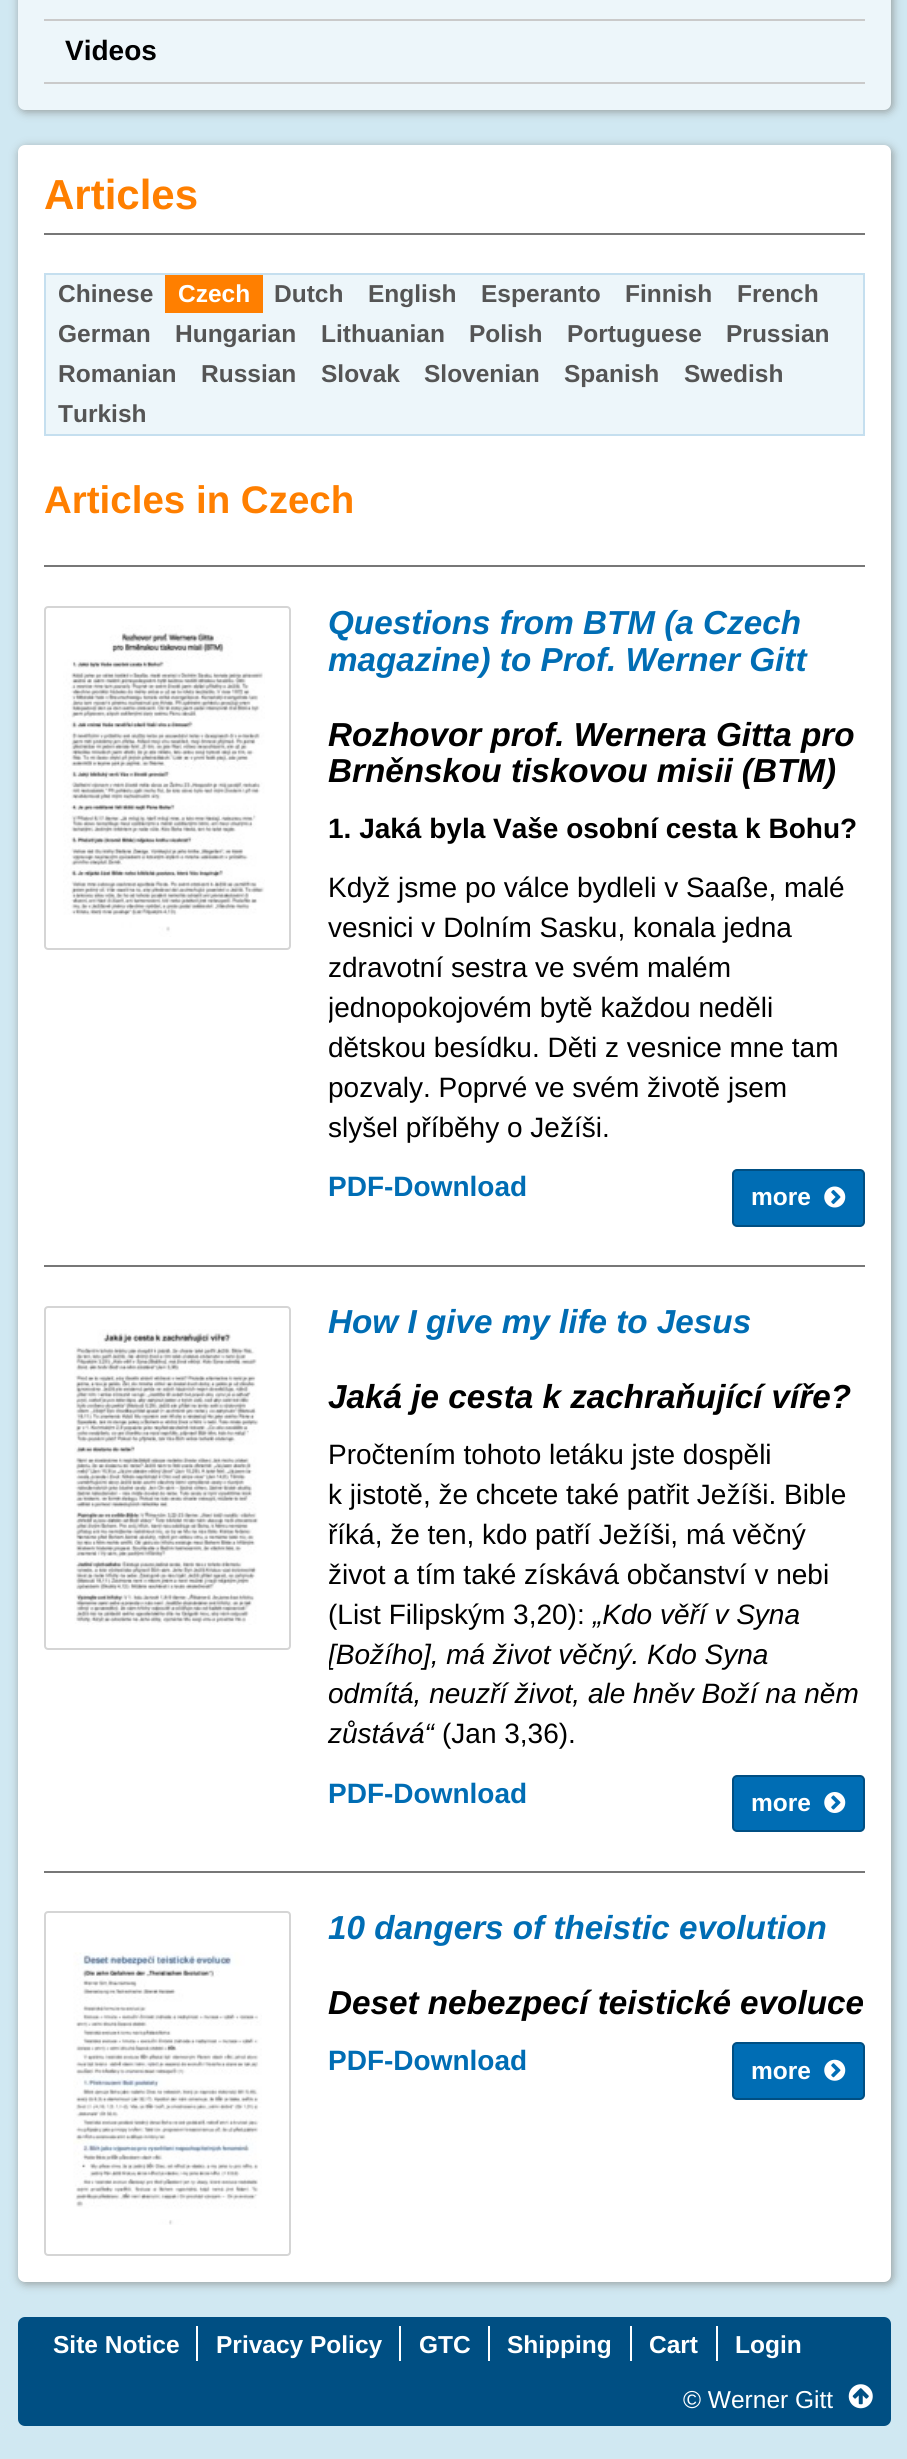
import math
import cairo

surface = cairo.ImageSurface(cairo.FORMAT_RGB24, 907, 2459)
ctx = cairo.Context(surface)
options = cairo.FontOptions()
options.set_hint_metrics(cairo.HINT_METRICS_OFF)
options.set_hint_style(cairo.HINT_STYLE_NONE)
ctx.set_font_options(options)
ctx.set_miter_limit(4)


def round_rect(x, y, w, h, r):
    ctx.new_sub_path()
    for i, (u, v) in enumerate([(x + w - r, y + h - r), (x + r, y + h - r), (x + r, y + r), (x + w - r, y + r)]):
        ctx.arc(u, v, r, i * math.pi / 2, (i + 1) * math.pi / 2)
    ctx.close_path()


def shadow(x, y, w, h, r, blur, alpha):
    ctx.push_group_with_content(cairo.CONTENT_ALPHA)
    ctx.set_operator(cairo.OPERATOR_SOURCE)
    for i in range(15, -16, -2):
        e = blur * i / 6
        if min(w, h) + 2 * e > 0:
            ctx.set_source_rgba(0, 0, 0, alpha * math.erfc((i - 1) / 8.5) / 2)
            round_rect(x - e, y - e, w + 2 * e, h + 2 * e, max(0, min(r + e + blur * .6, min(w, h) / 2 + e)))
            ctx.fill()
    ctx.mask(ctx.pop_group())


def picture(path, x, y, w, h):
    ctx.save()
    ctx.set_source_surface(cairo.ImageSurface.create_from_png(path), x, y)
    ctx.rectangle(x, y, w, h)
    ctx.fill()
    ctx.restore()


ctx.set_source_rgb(0.816, 0.91, 0.949)
ctx.paint()
ctx.set_source_rgb(0.592, 0.624, 0.624)
shadow(19, -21, 874, 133, 7, 4.5, 1)
ctx.set_source_rgb(0.929, 0.961, 0.98)
round_rect(18, -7, 873, 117, 7)
ctx.fill()
ctx.set_source_rgb(0.792, 0.792, 0.792)
ctx.rectangle(44, 19, 821, 2)
ctx.fill()
ctx.rectangle(44, 82, 821, 2)
ctx.fill()
ctx.select_font_face("Liberation Sans", cairo.FONT_SLANT_NORMAL, cairo.FONT_WEIGHT_BOLD)
ctx.set_font_size(28)
ctx.set_source_rgb(0, 0, 0)
ctx.move_to(65, 60)
ctx.show_text("Videos")
ctx.set_source_rgb(0.592, 0.624, 0.624)
shadow(19, 147, 874, 2137, 7, 4.5, 1)
ctx.set_source_rgb(1, 1, 1)
round_rect(18, 145, 873, 2137, 7)
ctx.fill()
ctx.set_source_rgb(0.467, 0.467, 0.467)
ctx.rectangle(44, 233, 821, 2)
ctx.fill()
ctx.set_font_size(42)
ctx.set_source_rgb(1, 0.498, 0)
ctx.move_to(44, 209)
ctx.show_text("Articles")
ctx.set_source_rgb(0.929, 0.961, 0.98)
ctx.rectangle(45, 274, 819, 161)
ctx.fill_preserve()
ctx.set_source_rgb(0.773, 0.875, 0.937)
ctx.stroke()
ctx.set_font_size(24.5)
ctx.set_source_rgb(0.333, 0.333, 0.333)
ctx.move_to(58, 302)
ctx.show_text("Chinese")
ctx.set_source_rgb(1, 0.498, 0)
ctx.rectangle(165, 275, 98, 38)
ctx.fill()
ctx.set_source_rgb(1, 1, 1)
ctx.move_to(178, 302)
ctx.show_text("Czech")
ctx.set_source_rgb(0.333, 0.333, 0.333)
ctx.move_to(274, 302)
ctx.show_text("Dutch")
ctx.move_to(368, 302)
ctx.show_text("English")
ctx.move_to(481, 302)
ctx.show_text("Esperanto")
ctx.move_to(625, 302)
ctx.show_text("Finnish")
ctx.move_to(737, 302)
ctx.show_text("French")
ctx.move_to(58, 342)
ctx.show_text("German")
ctx.move_to(175, 342)
ctx.show_text("Hungarian")
ctx.move_to(321, 342)
ctx.show_text("Lithuanian")
ctx.move_to(469, 342)
ctx.show_text("Polish")
ctx.move_to(567, 342)
ctx.show_text("Portuguese")
ctx.move_to(726, 342)
ctx.show_text("Prussian")
ctx.move_to(58, 382)
ctx.show_text("Romanian")
ctx.move_to(201, 382)
ctx.show_text("Russian")
ctx.move_to(321, 382)
ctx.show_text("Slovak")
ctx.move_to(424, 382)
ctx.show_text("Slovenian")
ctx.move_to(564, 382)
ctx.show_text("Spanish")
ctx.move_to(684, 382)
ctx.show_text("Swedish")
ctx.move_to(58, 422)
ctx.show_text("Turkish")
ctx.set_font_size(38.5)
ctx.set_source_rgb(1, 0.498, 0)
ctx.move_to(44, 513)
ctx.show_text("Articles in Czech")
ctx.set_source_rgb(0.467, 0.467, 0.467)
ctx.rectangle(44, 565, 821, 2)
ctx.fill()
round_rect(45, 607, 245, 342, 3)
ctx.set_source_rgb(0.835, 0.835, 0.835)
ctx.stroke()
picture("img1.png", 63, 625, 202, 312)
ctx.select_font_face("Liberation Sans", cairo.FONT_SLANT_ITALIC, cairo.FONT_WEIGHT_BOLD)
ctx.set_font_size(33.25)
ctx.set_source_rgb(0, 0.427, 0.706)
ctx.move_to(328, 634)
ctx.show_text("Questions from BTM (a Czech")
ctx.move_to(328, 671)
ctx.show_text("magazine) to Prof. Werner Gitt")
ctx.set_source_rgb(0, 0, 0)
ctx.move_to(328, 746)
ctx.show_text("Rozhovor prof. Wernera Gitta pro")
ctx.move_to(328, 782)
ctx.show_text("Brněnskou tiskovou misii (BTM)")
ctx.select_font_face("Liberation Sans", cairo.FONT_SLANT_NORMAL, cairo.FONT_WEIGHT_BOLD)
ctx.set_font_size(28)
ctx.move_to(328, 838)
ctx.show_text("1. Jaká byla Vaše osobní cesta k Bohu?")
ctx.select_font_face("Liberation Sans")
ctx.move_to(328, 897)
ctx.show_text("Když jsme po válce bydleli v Saaße, malé")
ctx.move_to(328, 937)
ctx.show_text("vesnici v Dolním Sasku, konala jedna")
ctx.move_to(328, 977)
ctx.show_text("zdravotní sestra ve svém malém")
ctx.save()
ctx.rectangle(329, 606, 536, 621)
ctx.clip()
ctx.move_to(328, 1017)
ctx.show_text("jednopokojovém bytě každou neděli")
ctx.restore()
ctx.move_to(328, 1057)
ctx.show_text("dětskou besídku. Děti z vesnice mne tam")
ctx.move_to(328, 1097)
ctx.show_text("pozvaly. Poprvé ve svém životě jsem")
ctx.move_to(328, 1137)
ctx.show_text("slyšel příběhy o Ježíši.")
ctx.select_font_face("Liberation Sans", cairo.FONT_SLANT_NORMAL, cairo.FONT_WEIGHT_BOLD)
ctx.set_source_rgb(0, 0.427, 0.706)
ctx.move_to(328, 1196)
ctx.show_text("PDF-Download")
round_rect(733, 1170, 131, 56, 4)
ctx.fill_preserve()
ctx.set_source_rgb(0, 0.31, 0.514)
ctx.stroke()
ctx.set_font_size(24.5)
ctx.set_source_rgb(1, 1, 1)
ctx.move_to(751, 1205)
ctx.show_text("more")
picture("img2.png", 824, 1186, 22, 22)
ctx.set_source_rgb(0.467, 0.467, 0.467)
ctx.rectangle(44, 1265, 821, 2)
ctx.fill()
round_rect(45, 1307, 245, 342, 3)
ctx.set_source_rgb(0.835, 0.835, 0.835)
ctx.stroke()
picture("img3.png", 74, 1329, 185, 296)
ctx.select_font_face("Liberation Sans", cairo.FONT_SLANT_ITALIC, cairo.FONT_WEIGHT_BOLD)
ctx.set_font_size(33.25)
ctx.set_source_rgb(0, 0.427, 0.706)
ctx.move_to(328, 1333)
ctx.show_text("How I give my life to Jesus")
ctx.set_source_rgb(0, 0, 0)
ctx.move_to(328, 1408)
ctx.show_text("Jaká je cesta k zachraňující víře?")
ctx.select_font_face("Liberation Sans")
ctx.set_font_size(28)
ctx.move_to(328, 1464)
ctx.show_text("Pročtením tohoto letáku jste dospěli")
ctx.move_to(328, 1504)
ctx.show_text("k jistotě, že chcete také patřit Ježíši. Bible")
ctx.move_to(328, 1544)
ctx.show_text("říká, že ten, kdo patří Ježíši, má věčný")
ctx.move_to(328, 1584)
ctx.show_text("život a tím také získává občanství v nebi")
ctx.move_to(328, 1624)
ctx.show_text("(List Filipským 3,20):")
ctx.select_font_face("Liberation Sans", cairo.FONT_SLANT_ITALIC)
ctx.move_to(593, 1624)
ctx.show_text("„Kdo věří v Syna")
ctx.save()
ctx.rectangle(329, 1306, 536, 526)
ctx.clip()
ctx.move_to(328, 1664)
ctx.show_text("[Božího], má život věčný. Kdo Syna")
ctx.restore()
ctx.move_to(328, 1703)
ctx.show_text("odmítá, neuzří život, ale hněv Boží na něm")
ctx.move_to(328, 1743)
ctx.show_text("zůstává“")
ctx.select_font_face("Liberation Sans")
ctx.move_to(442, 1743)
ctx.show_text("(Jan 3,36).")
ctx.select_font_face("Liberation Sans", cairo.FONT_SLANT_NORMAL, cairo.FONT_WEIGHT_BOLD)
ctx.set_source_rgb(0, 0.427, 0.706)
ctx.move_to(328, 1803)
ctx.show_text("PDF-Download")
round_rect(733, 1776, 131, 55, 4)
ctx.fill_preserve()
ctx.set_source_rgb(0, 0.31, 0.514)
ctx.stroke()
ctx.set_font_size(24.5)
ctx.set_source_rgb(1, 1, 1)
ctx.move_to(751, 1811)
ctx.show_text("more")
picture("img4.png", 824, 1792, 22, 21)
ctx.set_source_rgb(0.467, 0.467, 0.467)
ctx.rectangle(44, 1871, 821, 2)
ctx.fill()
round_rect(45, 1912, 245, 343, 3)
ctx.set_source_rgb(0.835, 0.835, 0.835)
ctx.stroke()
picture("img5.png", 73, 1952, 189, 273)
ctx.select_font_face("Liberation Sans", cairo.FONT_SLANT_ITALIC, cairo.FONT_WEIGHT_BOLD)
ctx.set_font_size(33.25)
ctx.set_source_rgb(0, 0.427, 0.706)
ctx.move_to(328, 1939)
ctx.show_text("10 dangers of theistic evolution")
ctx.set_source_rgb(0, 0, 0)
ctx.move_to(328, 2014)
ctx.show_text("Deset nebezpecí teistické evoluce")
ctx.select_font_face("Liberation Sans", cairo.FONT_SLANT_NORMAL, cairo.FONT_WEIGHT_BOLD)
ctx.set_font_size(28)
ctx.set_source_rgb(0, 0.427, 0.706)
ctx.move_to(328, 2070)
ctx.show_text("PDF-Download")
round_rect(733, 2043, 131, 56, 4)
ctx.fill_preserve()
ctx.set_source_rgb(0, 0.31, 0.514)
ctx.stroke()
ctx.set_font_size(24.5)
ctx.set_source_rgb(1, 1, 1)
ctx.move_to(751, 2079)
ctx.show_text("more")
picture("img6.png", 824, 2059, 22, 22)
ctx.set_source_rgb(0, 0.31, 0.514)
round_rect(18, 2317, 873, 109, 7)
ctx.fill()
ctx.set_source_rgb(1, 1, 1)
ctx.rectangle(196, 2326, 2, 35)
ctx.fill()
ctx.move_to(53, 2353)
ctx.show_text("Site Notice")
ctx.rectangle(399, 2326, 2, 35)
ctx.fill()
ctx.move_to(216, 2353)
ctx.show_text("Privacy Policy")
ctx.rectangle(488, 2326, 2, 35)
ctx.fill()
ctx.move_to(419, 2353)
ctx.show_text("GTC")
ctx.rectangle(630, 2326, 2, 35)
ctx.fill()
ctx.move_to(507, 2353)
ctx.show_text("Shipping")
ctx.rectangle(716, 2326, 2, 35)
ctx.fill()
ctx.move_to(649, 2353)
ctx.show_text("Cart")
ctx.move_to(735, 2353)
ctx.show_text("Login")
ctx.select_font_face("Liberation Sans")
ctx.move_to(683, 2408)
ctx.show_text("© Werner Gitt")
picture("img7.png", 848, 2384, 25, 25)
surface.write_to_png("page.png")
